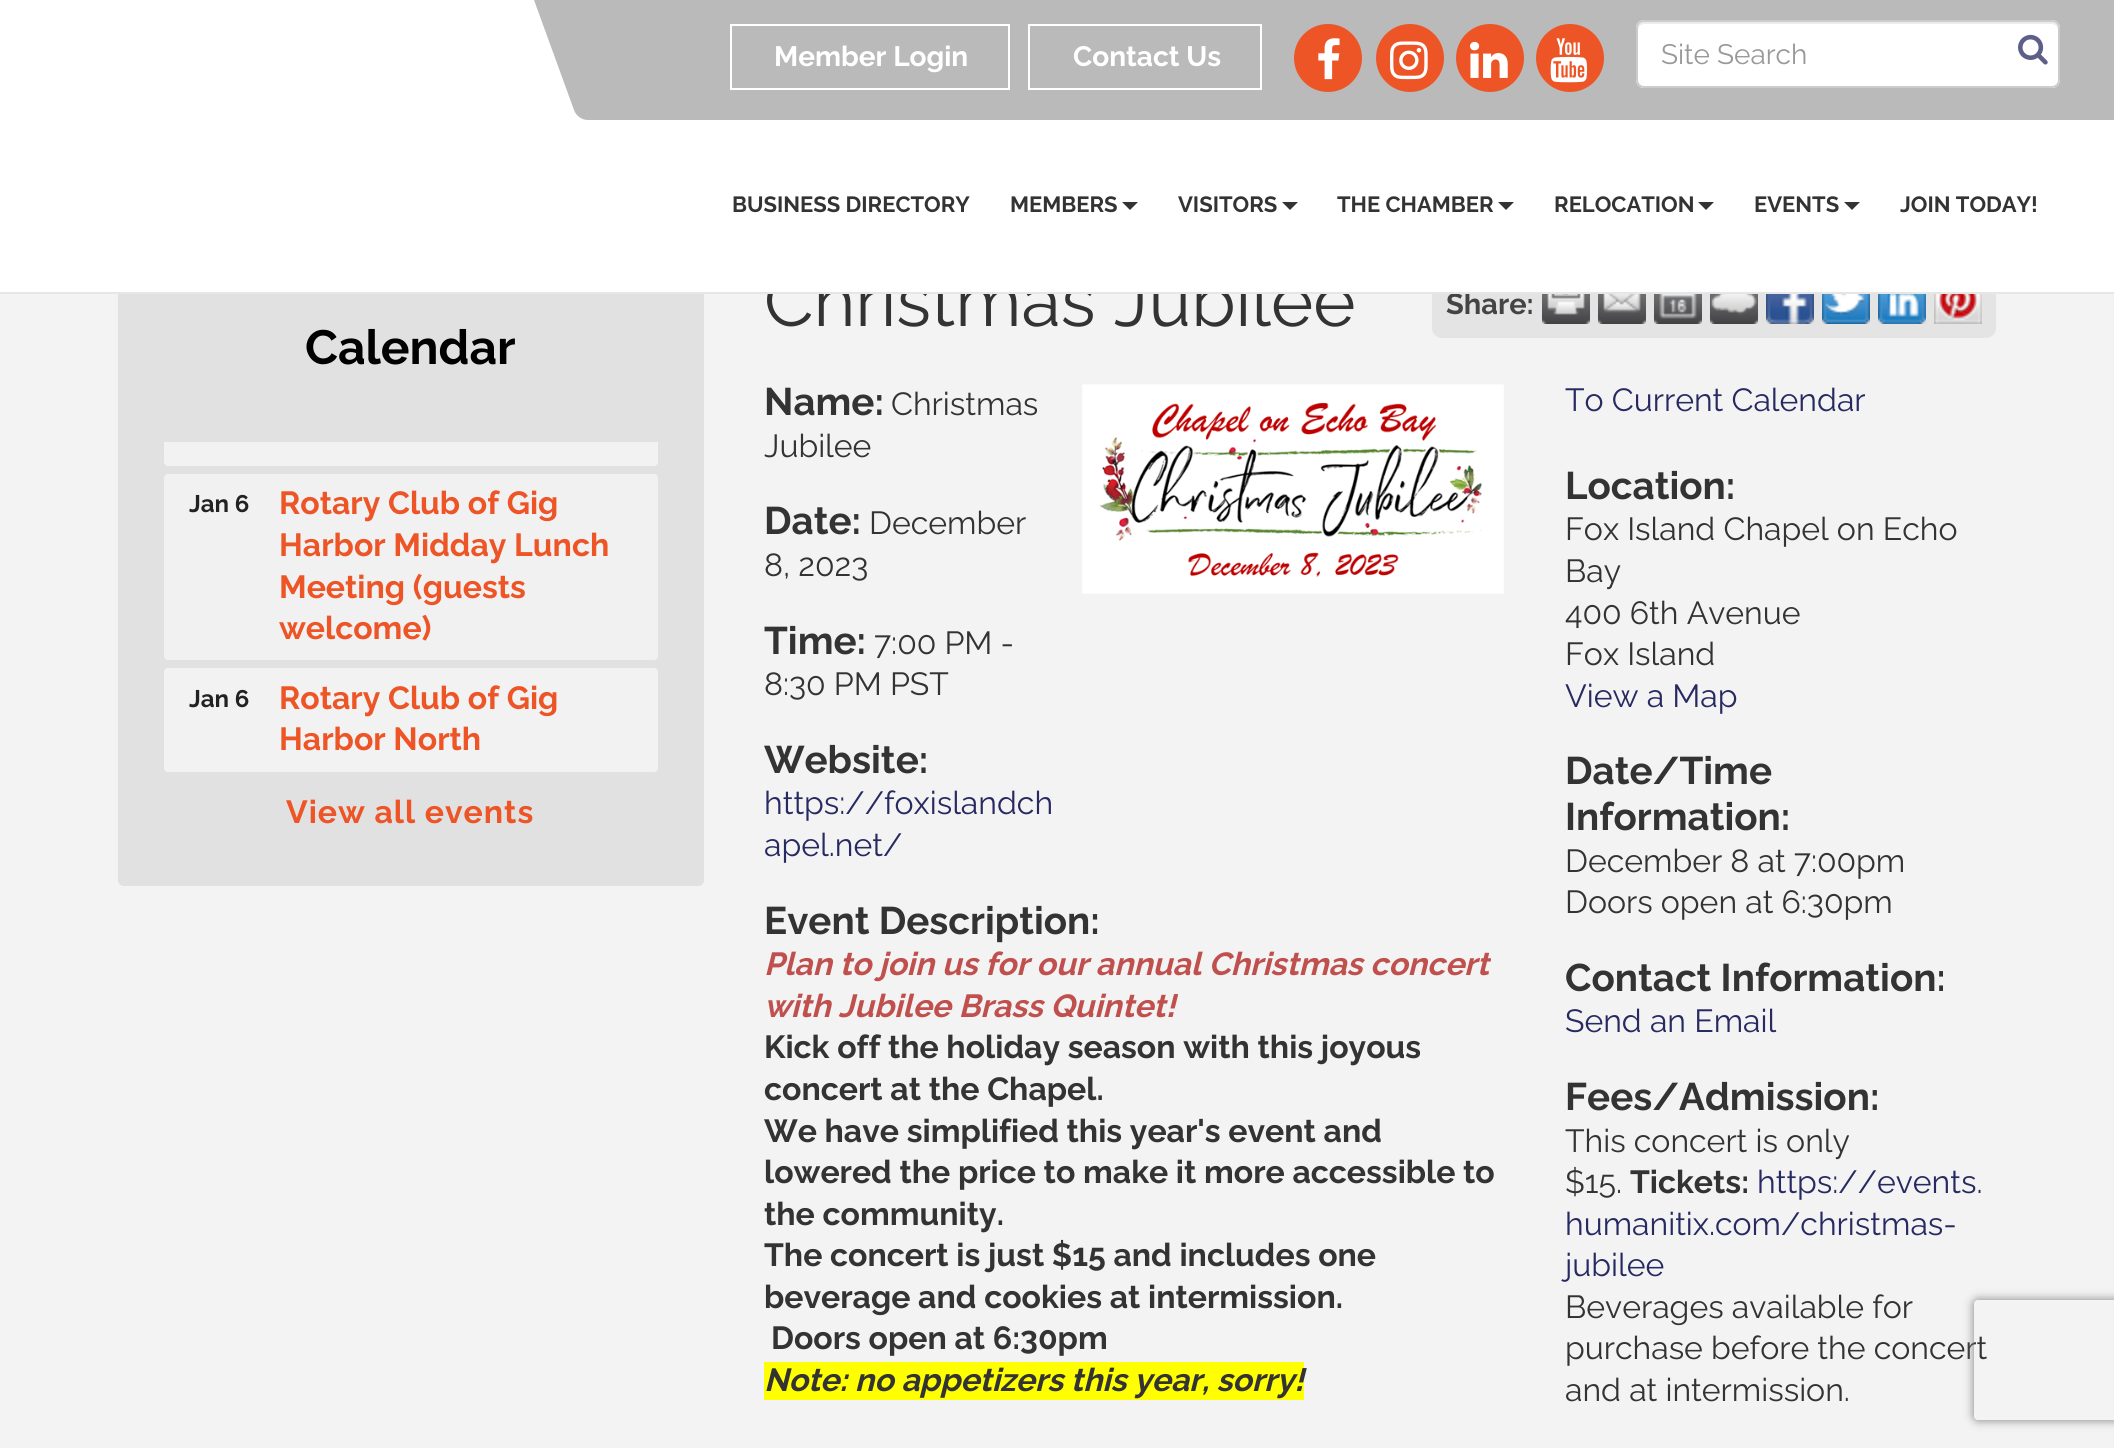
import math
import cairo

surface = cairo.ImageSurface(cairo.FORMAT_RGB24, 2114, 1448)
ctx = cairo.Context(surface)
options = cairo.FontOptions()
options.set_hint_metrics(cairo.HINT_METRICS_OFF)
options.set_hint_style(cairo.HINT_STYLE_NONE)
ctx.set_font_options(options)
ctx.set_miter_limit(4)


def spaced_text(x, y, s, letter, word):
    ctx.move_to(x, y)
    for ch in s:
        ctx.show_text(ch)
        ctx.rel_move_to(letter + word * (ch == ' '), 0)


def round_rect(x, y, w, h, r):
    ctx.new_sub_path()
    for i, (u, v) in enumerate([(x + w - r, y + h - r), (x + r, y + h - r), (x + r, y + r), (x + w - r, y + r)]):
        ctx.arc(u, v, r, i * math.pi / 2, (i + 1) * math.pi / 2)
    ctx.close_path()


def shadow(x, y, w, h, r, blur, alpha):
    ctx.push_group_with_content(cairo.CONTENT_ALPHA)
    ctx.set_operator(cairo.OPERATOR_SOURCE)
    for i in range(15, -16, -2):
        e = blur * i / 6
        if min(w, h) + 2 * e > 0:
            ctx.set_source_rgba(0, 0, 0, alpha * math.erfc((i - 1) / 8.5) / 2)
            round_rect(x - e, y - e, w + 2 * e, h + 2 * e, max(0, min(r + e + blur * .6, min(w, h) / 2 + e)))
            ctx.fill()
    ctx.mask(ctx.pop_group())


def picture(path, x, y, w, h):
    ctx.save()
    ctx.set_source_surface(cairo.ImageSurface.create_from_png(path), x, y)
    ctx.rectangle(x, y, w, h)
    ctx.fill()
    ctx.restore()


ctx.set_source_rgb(0.953, 0.953, 0.953)
ctx.paint()
ctx.set_source_rgb(0.882, 0.882, 0.882)
round_rect(118, 252, 586, 634, 8)
ctx.fill()
ctx.select_font_face("Raleway")
ctx.set_font_size(72)
ctx.set_source_rgb(0.2, 0.2, 0.2)
ctx.move_to(764, 326)
ctx.show_text("Christmas Jubilee")
ctx.set_source_rgb(0.894, 0.894, 0.894)
round_rect(1432, 262, 564, 76, 10)
ctx.fill()
ctx.set_source_rgb(1, 1, 1)
ctx.rectangle(0, 0, 2114, 292)
ctx.fill()
ctx.select_font_face("Raleway", cairo.FONT_SLANT_NORMAL, cairo.FONT_WEIGHT_BOLD)
ctx.set_font_size(29)
ctx.set_source_rgb(0.267, 0.267, 0.267)
ctx.move_to(1446, 314)
ctx.show_text("Share:")
ctx.set_source_rgb(0.902, 0.902, 0.902)
ctx.rectangle(0, 292, 2114, 2)
ctx.fill()
ctx.set_source_rgb(0.729, 0.729, 0.729)
ctx.new_path()
ctx.move_to(534, 0)
ctx.line_to(2038, 0)
ctx.line_to(2081, 120)
ctx.line_to(588, 120)
ctx.curve_to(582, 120, 576, 116, 574, 110)
ctx.close_path()
ctx.fill()
ctx.rectangle(731, 25, 278, 64)
ctx.set_source_rgb(1, 1, 1)
ctx.stroke()
ctx.set_font_size(28)
ctx.move_to(774, 66)
ctx.show_text("Member Login")
ctx.rectangle(1029, 25, 232, 64)
ctx.stroke()
ctx.move_to(1073, 66)
ctx.show_text("Contact Us")
ctx.set_source_rgb(0.933, 0.333, 0.149)
ctx.new_path()
ctx.arc(1328, 58, 33, 0, 2 * math.pi)
ctx.fill_preserve()
ctx.stroke()
picture("img1.png", 1318, 38, 22, 42)
ctx.arc(1410, 58, 33, 0, 2 * math.pi)
ctx.fill_preserve()
ctx.stroke()
picture("img2.png", 1390, 41, 38, 39)
ctx.arc(1490, 58, 33, 0, 2 * math.pi)
ctx.fill_preserve()
ctx.stroke()
picture("img3.png", 1470, 41, 38, 37)
ctx.arc(1570, 58, 33, 0, 2 * math.pi)
ctx.fill_preserve()
ctx.stroke()
picture("img4.png", 1550, 38, 38, 45)
ctx.set_source_rgb(0.729, 0.729, 0.729)
ctx.new_path()
ctx.move_to(2036, 0)
ctx.line_to(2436, 0)
ctx.line_to(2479, 120)
ctx.line_to(2079, 120)
ctx.close_path()
ctx.fill()
ctx.set_source_rgb(1, 1, 1)
round_rect(1636, 20, 424, 68, 8)
ctx.fill()
ctx.set_source_rgb(0.925, 0.925, 0.925)
ctx.new_path()
ctx.move_to(1644, 24)
ctx.line_to(2052, 24)
ctx.curve_to(2055, 24, 2058, 27, 2058, 30)
ctx.line_to(2058, 28)
ctx.curve_to(2058, 25, 2055, 22, 2052, 22)
ctx.line_to(1644, 22)
ctx.curve_to(1641, 22, 1638, 25, 1638, 28)
ctx.line_to(1638, 30)
ctx.curve_to(1638, 27, 1641, 24, 1644, 24)
ctx.close_path()
ctx.fill()
round_rect(1637, 21, 422, 66, 7)
ctx.set_source_rgb(0.8, 0.8, 0.8)
ctx.stroke()
ctx.select_font_face("Raleway")
ctx.set_source_rgb(0.6, 0.6, 0.6)
ctx.move_to(1661, 64)
ctx.show_text("Site Search")
picture("img5.png", 2018, 34, 30, 31)
ctx.select_font_face("Raleway", cairo.FONT_SLANT_NORMAL, cairo.FONT_WEIGHT_BOLD)
ctx.set_font_size(22)
ctx.set_source_rgb(0.2, 0.2, 0.2)
ctx.move_to(732, 212)
ctx.show_text("BUSINESS DIRECTORY")
ctx.move_to(1010, 212)
ctx.show_text("MEMBERS")
ctx.new_path()
ctx.move_to(1122, 202)
ctx.line_to(1138, 202)
ctx.line_to(1130, 210)
ctx.close_path()
ctx.fill()
ctx.move_to(1178, 212)
ctx.show_text("VISITORS")
ctx.new_path()
ctx.move_to(1282, 202)
ctx.line_to(1298, 202)
ctx.line_to(1290, 210)
ctx.close_path()
ctx.fill()
ctx.move_to(1337, 212)
ctx.show_text("THE CHAMBER")
ctx.new_path()
ctx.move_to(1498, 202)
ctx.line_to(1514, 202)
ctx.line_to(1506, 210)
ctx.close_path()
ctx.fill()
ctx.move_to(1554, 212)
ctx.show_text("RELOCATION")
ctx.new_path()
ctx.move_to(1698, 202)
ctx.line_to(1714, 202)
ctx.line_to(1706, 210)
ctx.close_path()
ctx.fill()
ctx.move_to(1754, 212)
ctx.show_text("EVENTS")
ctx.new_path()
ctx.move_to(1844, 202)
ctx.line_to(1860, 202)
ctx.line_to(1852, 210)
ctx.close_path()
ctx.fill()
ctx.move_to(1900, 212)
ctx.show_text("JOIN TODAY!")
ctx.set_font_size(48)
ctx.set_source_rgb(0, 0, 0)
ctx.move_to(305, 364)
ctx.show_text("Calendar")
ctx.set_source_rgb(0.882, 0.882, 0.882)
ctx.new_path()
ctx.move_to(118, 396)
ctx.line_to(704, 396)
ctx.line_to(704, 880)
ctx.curve_to(704, 883.5, 701.5, 886, 698, 886)
ctx.line_to(124, 886)
ctx.curve_to(120.5, 886, 118, 883.5, 118, 880)
ctx.close_path()
ctx.fill()
ctx.set_source_rgb(0.949, 0.949, 0.949)
ctx.new_path()
ctx.move_to(164, 442)
ctx.line_to(658, 442)
ctx.line_to(658, 462)
ctx.curve_to(658, 464, 656, 466, 654, 466)
ctx.line_to(168, 466)
ctx.curve_to(166, 466, 164, 464, 164, 462)
ctx.close_path()
ctx.fill()
ctx.set_source_rgb(0.945, 0.945, 0.945)
round_rect(164, 474, 494, 186, 4)
ctx.fill()
ctx.set_font_size(24)
ctx.set_source_rgb(0.133, 0.133, 0.133)
ctx.move_to(189, 512)
ctx.show_text("Jan 6")
ctx.set_font_size(32)
ctx.set_source_rgb(0.929, 0.329, 0.149)
ctx.move_to(279, 514)
ctx.show_text("Rotary Club of Gig")
ctx.move_to(279, 556)
ctx.show_text("Harbor Midday Lunch")
ctx.move_to(279, 598)
ctx.show_text("Meeting (guests")
ctx.move_to(279, 639)
ctx.show_text("welcome)")
ctx.set_source_rgb(0.949, 0.949, 0.949)
round_rect(164, 668, 494, 104, 4)
ctx.fill()
ctx.set_font_size(24)
ctx.set_source_rgb(0.133, 0.133, 0.133)
ctx.move_to(189, 707)
ctx.show_text("Jan 6")
ctx.set_font_size(32)
ctx.set_source_rgb(0.929, 0.329, 0.149)
ctx.move_to(279, 709)
ctx.show_text("Rotary Club of Gig")
ctx.move_to(279, 750)
ctx.show_text("Harbor North")
spaced_text(286, 823, "View all events", 1, 0)
picture("img6.png", 1542, 294, 48, 30)
picture("img7.png", 1598, 294, 48, 30)
picture("img8.png", 1654, 294, 48, 30)
picture("img9.png", 1710, 294, 48, 30)
picture("img10.png", 1766, 294, 48, 30)
picture("img11.png", 1822, 294, 48, 30)
picture("img12.png", 1878, 294, 48, 30)
picture("img13.png", 1934, 294, 48, 30)
ctx.set_font_size(38.5)
ctx.set_source_rgb(0.2, 0.2, 0.2)
ctx.move_to(764, 415)
ctx.show_text("Name:")
ctx.select_font_face("Raleway")
ctx.set_font_size(32)
ctx.move_to(891, 415)
ctx.show_text("Christmas")
ctx.move_to(764, 457)
ctx.show_text("Jubilee")
ctx.select_font_face("Raleway", cairo.FONT_SLANT_NORMAL, cairo.FONT_WEIGHT_BOLD)
ctx.set_font_size(38.5)
ctx.move_to(764, 534)
ctx.show_text("Date:")
ctx.select_font_face("Raleway")
ctx.set_font_size(32)
ctx.move_to(869, 534)
ctx.show_text("December")
ctx.move_to(764, 576)
ctx.show_text("8, 2023")
ctx.select_font_face("Raleway", cairo.FONT_SLANT_NORMAL, cairo.FONT_WEIGHT_BOLD)
ctx.set_font_size(38.5)
ctx.move_to(764, 654)
ctx.show_text("Time:")
ctx.select_font_face("Raleway")
ctx.set_font_size(32)
ctx.move_to(874, 654)
ctx.show_text("7:00 PM -")
ctx.move_to(764, 695)
ctx.show_text("8:30 PM PST")
ctx.select_font_face("Raleway", cairo.FONT_SLANT_NORMAL, cairo.FONT_WEIGHT_BOLD)
ctx.set_font_size(38.5)
ctx.move_to(764, 773)
ctx.show_text("Website:")
ctx.select_font_face("Raleway")
ctx.set_font_size(32)
ctx.set_source_rgb(0.153, 0.165, 0.38)
ctx.move_to(764, 814)
ctx.show_text("https://foxislandch")
ctx.move_to(764, 856)
ctx.show_text("apel.net/")
picture("img14.png", 1082, 384, 422, 210)
ctx.select_font_face("Raleway", cairo.FONT_SLANT_NORMAL, cairo.FONT_WEIGHT_BOLD)
ctx.set_font_size(38.5)
ctx.set_source_rgb(0.2, 0.2, 0.2)
ctx.move_to(764, 934)
ctx.show_text("Event Description:")
ctx.select_font_face("Raleway", cairo.FONT_SLANT_ITALIC, cairo.FONT_WEIGHT_BOLD)
ctx.set_font_size(32)
ctx.set_source_rgb(0.753, 0.314, 0.302)
ctx.move_to(764, 975)
ctx.show_text("Plan to join us for our annual Christmas concert")
ctx.move_to(764, 1017)
ctx.show_text("with Jubilee Brass Quintet!")
ctx.select_font_face("Raleway", cairo.FONT_SLANT_NORMAL, cairo.FONT_WEIGHT_BOLD)
ctx.set_source_rgb(0.2, 0.2, 0.2)
ctx.move_to(764, 1058)
ctx.show_text("Kick off the holiday season with this joyous")
ctx.move_to(764, 1100)
ctx.show_text("concert at the Chapel.")
ctx.move_to(764, 1142)
ctx.show_text("We have simplified this year's event and")
ctx.move_to(764, 1183)
ctx.show_text("lowered the price to make it more accessible to")
ctx.move_to(764, 1225)
ctx.show_text("the community.")
ctx.move_to(764, 1266)
ctx.show_text("The concert is just $15 and includes one")
ctx.move_to(764, 1308)
ctx.show_text("beverage and cookies at intermission.")
ctx.move_to(771, 1349)
ctx.show_text("Doors open at 6:30pm")
ctx.set_source_rgb(1, 1, 0)
ctx.rectangle(764, 1362, 540, 38)
ctx.fill()
ctx.select_font_face("Raleway", cairo.FONT_SLANT_ITALIC, cairo.FONT_WEIGHT_BOLD)
ctx.set_source_rgb(0.2, 0.2, 0.2)
ctx.move_to(764, 1391)
ctx.show_text("Note: no appetizers this year, sorry!")
ctx.select_font_face("Raleway")
ctx.set_source_rgb(0.153, 0.165, 0.38)
ctx.move_to(1565, 411)
ctx.show_text("To Current Calendar")
ctx.select_font_face("Raleway", cairo.FONT_SLANT_NORMAL, cairo.FONT_WEIGHT_BOLD)
ctx.set_font_size(38.5)
ctx.set_source_rgb(0.2, 0.2, 0.2)
ctx.move_to(1565, 499)
ctx.show_text("Location:")
ctx.select_font_face("Raleway")
ctx.set_font_size(32)
ctx.move_to(1565, 540)
ctx.show_text("Fox Island Chapel on Echo")
ctx.move_to(1565, 582)
ctx.show_text("Bay")
ctx.move_to(1565, 624)
ctx.show_text("400 6th Avenue")
ctx.move_to(1565, 665)
ctx.show_text("Fox Island")
ctx.set_source_rgb(0.153, 0.165, 0.38)
ctx.move_to(1565, 707)
ctx.show_text("View a Map")
ctx.select_font_face("Raleway", cairo.FONT_SLANT_NORMAL, cairo.FONT_WEIGHT_BOLD)
ctx.set_font_size(38.5)
ctx.set_source_rgb(0.2, 0.2, 0.2)
ctx.move_to(1565, 784)
ctx.show_text("Date/Time")
ctx.move_to(1565, 830)
ctx.show_text("Information:")
ctx.select_font_face("Raleway")
ctx.set_font_size(32)
ctx.move_to(1565, 872)
ctx.show_text("December 8 at 7:00pm")
ctx.move_to(1565, 913)
ctx.show_text("Doors open at 6:30pm")
ctx.select_font_face("Raleway", cairo.FONT_SLANT_NORMAL, cairo.FONT_WEIGHT_BOLD)
ctx.set_font_size(38.5)
ctx.move_to(1565, 991)
ctx.show_text("Contact Information:")
ctx.select_font_face("Raleway")
ctx.set_font_size(32)
ctx.set_source_rgb(0.153, 0.165, 0.38)
ctx.move_to(1565, 1032)
ctx.show_text("Send an Email")
ctx.select_font_face("Raleway", cairo.FONT_SLANT_NORMAL, cairo.FONT_WEIGHT_BOLD)
ctx.set_font_size(38.5)
ctx.set_source_rgb(0.2, 0.2, 0.2)
ctx.move_to(1565, 1110)
ctx.show_text("Fees/Admission:")
ctx.select_font_face("Raleway")
ctx.set_font_size(32)
ctx.move_to(1565, 1152)
ctx.show_text("This concert is only")
ctx.move_to(1565, 1193)
ctx.show_text("$15.")
ctx.select_font_face("Raleway", cairo.FONT_SLANT_NORMAL, cairo.FONT_WEIGHT_BOLD)
ctx.move_to(1630, 1193)
ctx.show_text("Tickets:")
ctx.select_font_face("Raleway")
ctx.set_source_rgb(0.153, 0.165, 0.38)
ctx.move_to(1757, 1193)
ctx.show_text("https://events.")
ctx.move_to(1565, 1235)
ctx.show_text("humanitix.com/christmas-")
ctx.move_to(1565, 1276)
ctx.show_text("jubilee")
ctx.set_source_rgb(0.2, 0.2, 0.2)
ctx.move_to(1565, 1318)
ctx.show_text("Beverages available for")
ctx.move_to(1565, 1359)
ctx.show_text("purchase before the concert")
ctx.move_to(1565, 1401)
ctx.show_text("and at intermission.")
ctx.save()
ctx.set_fill_rule(cairo.FILL_RULE_EVEN_ODD)
ctx.new_path()
ctx.move_to(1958, 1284)
ctx.line_to(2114, 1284)
ctx.line_to(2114, 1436)
ctx.line_to(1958, 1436)
ctx.close_path()
ctx.move_to(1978, 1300)
ctx.line_to(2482, 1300)
ctx.curve_to(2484, 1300, 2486, 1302, 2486, 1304)
ctx.line_to(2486, 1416)
ctx.curve_to(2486, 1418, 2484, 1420, 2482, 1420)
ctx.line_to(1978, 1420)
ctx.curve_to(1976, 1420, 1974, 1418, 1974, 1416)
ctx.line_to(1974, 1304)
ctx.curve_to(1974, 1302, 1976, 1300, 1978, 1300)
ctx.close_path()
ctx.clip()
ctx.set_source_rgb(0.502, 0.502, 0.502)
shadow(1974, 1300, 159, 120, 4, 5, 1)
ctx.restore()
surface.write_to_png("page.png")
